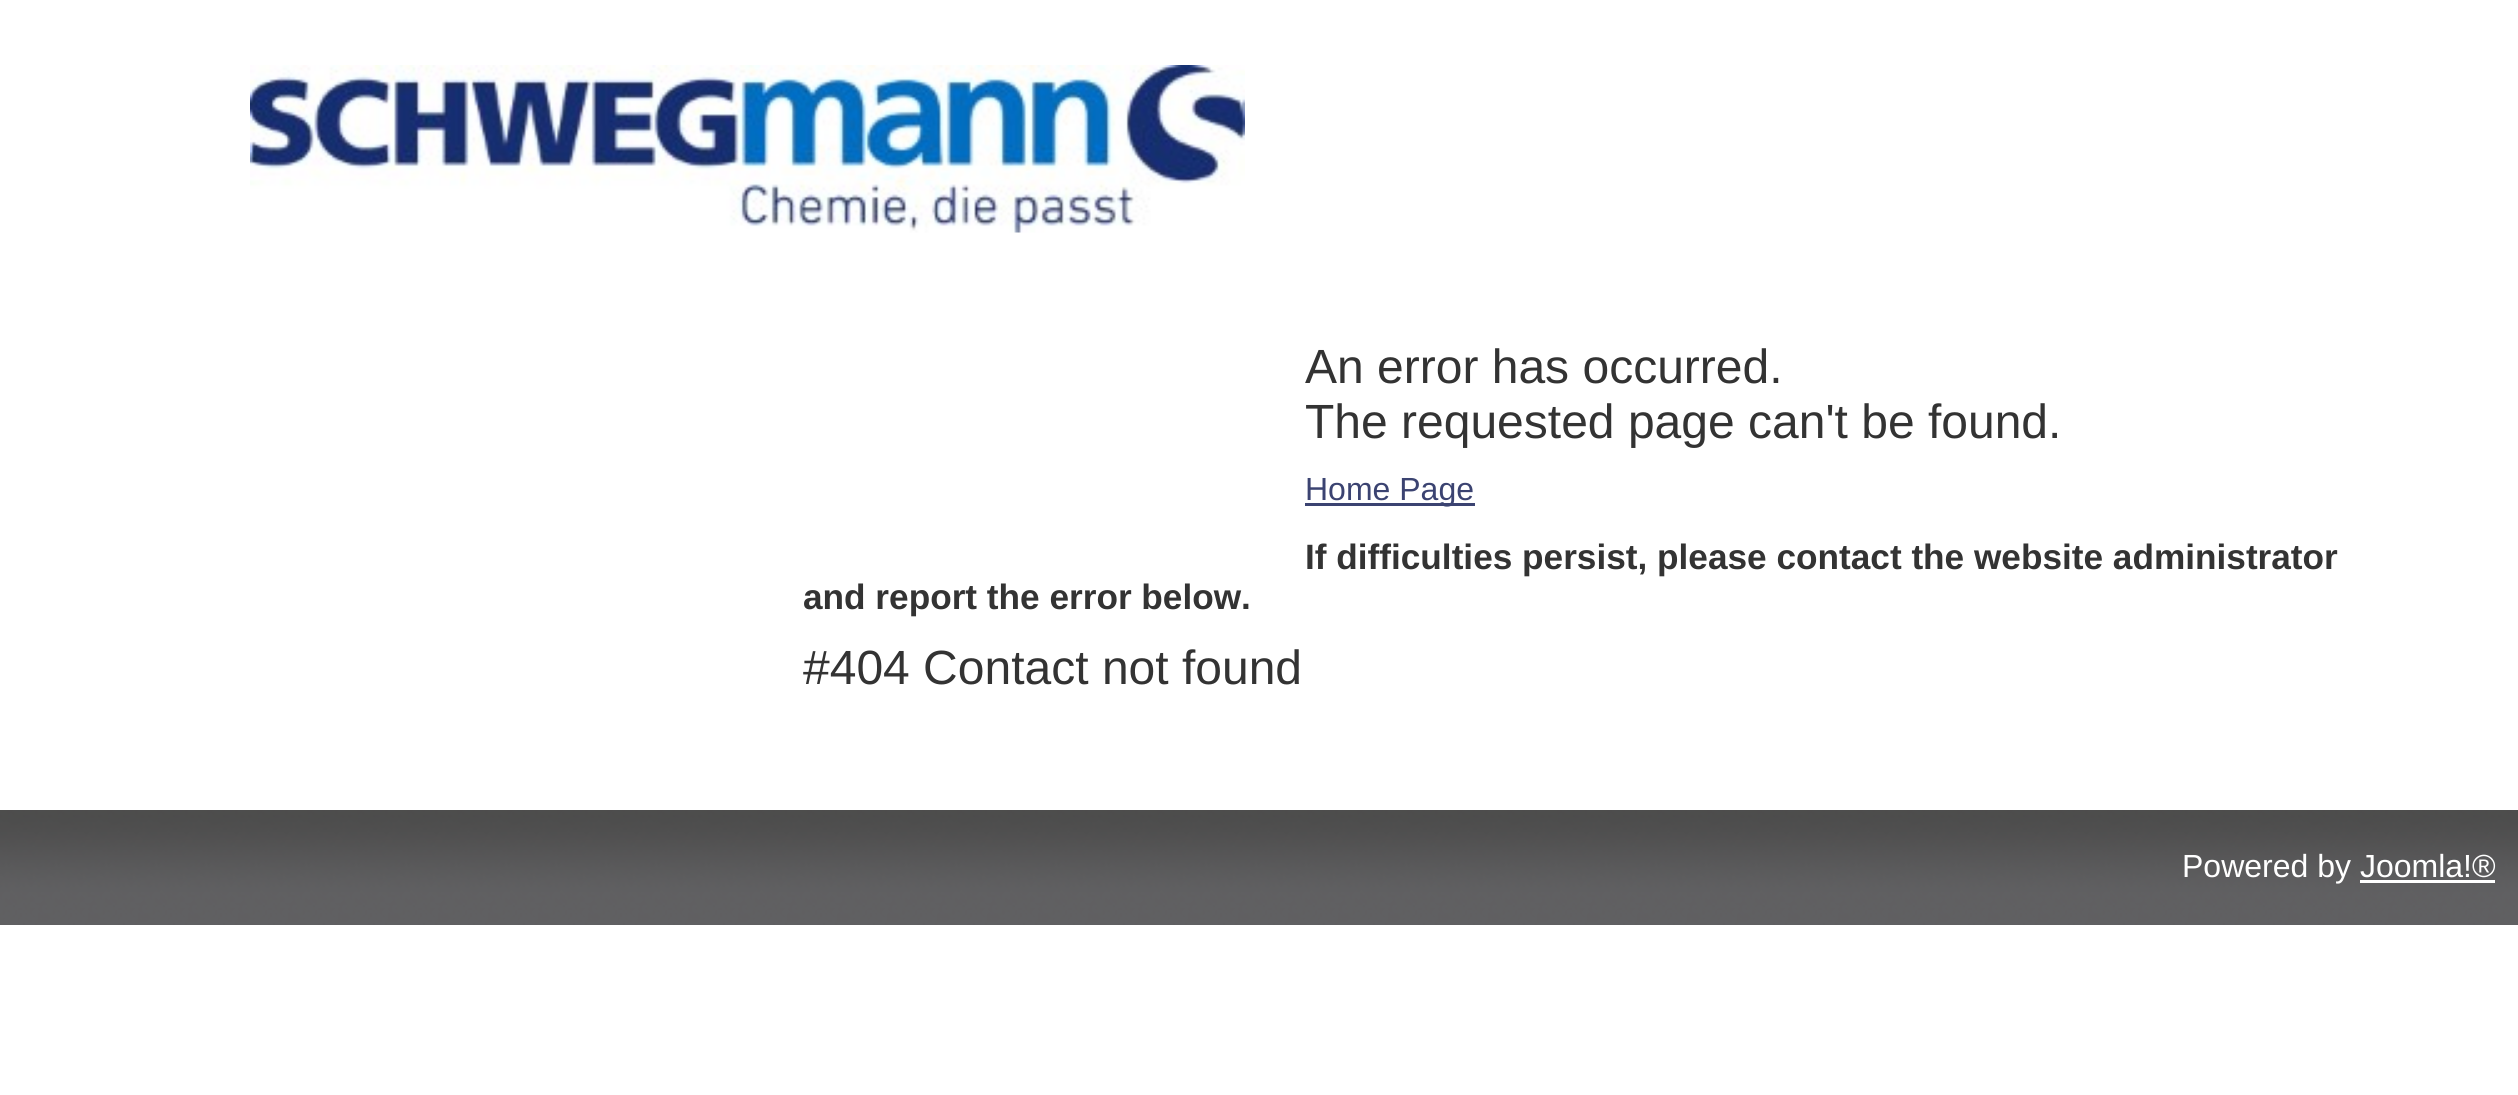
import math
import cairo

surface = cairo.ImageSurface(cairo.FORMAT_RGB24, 2518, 1095)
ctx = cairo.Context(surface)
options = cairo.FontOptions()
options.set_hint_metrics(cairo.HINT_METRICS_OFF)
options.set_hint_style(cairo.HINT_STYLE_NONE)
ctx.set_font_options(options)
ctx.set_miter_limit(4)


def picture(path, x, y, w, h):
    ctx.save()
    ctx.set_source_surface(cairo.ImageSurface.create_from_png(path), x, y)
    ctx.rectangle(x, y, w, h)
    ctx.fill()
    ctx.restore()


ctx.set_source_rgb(1, 1, 1)
ctx.paint()
picture("img1.png", 250, 65, 995, 168)
ctx.select_font_face("Liberation Sans")
ctx.set_font_size(48)
ctx.set_source_rgb(0.2, 0.2, 0.2)
ctx.move_to(1305, 383)
ctx.show_text("An error has occurred.")
ctx.move_to(1305, 438)
ctx.show_text("The requested page can't be found.")
ctx.set_source_rgb(0.231, 0.263, 0.443)
ctx.rectangle(1305, 503, 170, 3)
ctx.fill()
ctx.set_font_size(32)
ctx.move_to(1305, 500)
ctx.show_text("Home Page")
ctx.select_font_face("Liberation Sans", cairo.FONT_SLANT_NORMAL, cairo.FONT_WEIGHT_BOLD)
ctx.set_font_size(35.2)
ctx.set_source_rgb(0.2, 0.2, 0.2)
ctx.move_to(1305, 569)
ctx.show_text("If difficulties persist, please contact the website administrator")
ctx.move_to(803, 609)
ctx.show_text("and report the error below.")
ctx.select_font_face("Liberation Sans")
ctx.set_font_size(48)
ctx.move_to(803, 684)
ctx.show_text("#404 Contact not found")
picture("img2.png", 0, 810, 2518, 115)
ctx.set_font_size(32)
ctx.set_source_rgb(1, 1, 1)
ctx.move_to(2182, 877)
ctx.show_text("Powered by Joomla!®")
ctx.rectangle(2360, 880, 135, 3)
ctx.fill()
surface.write_to_png("page.png")
